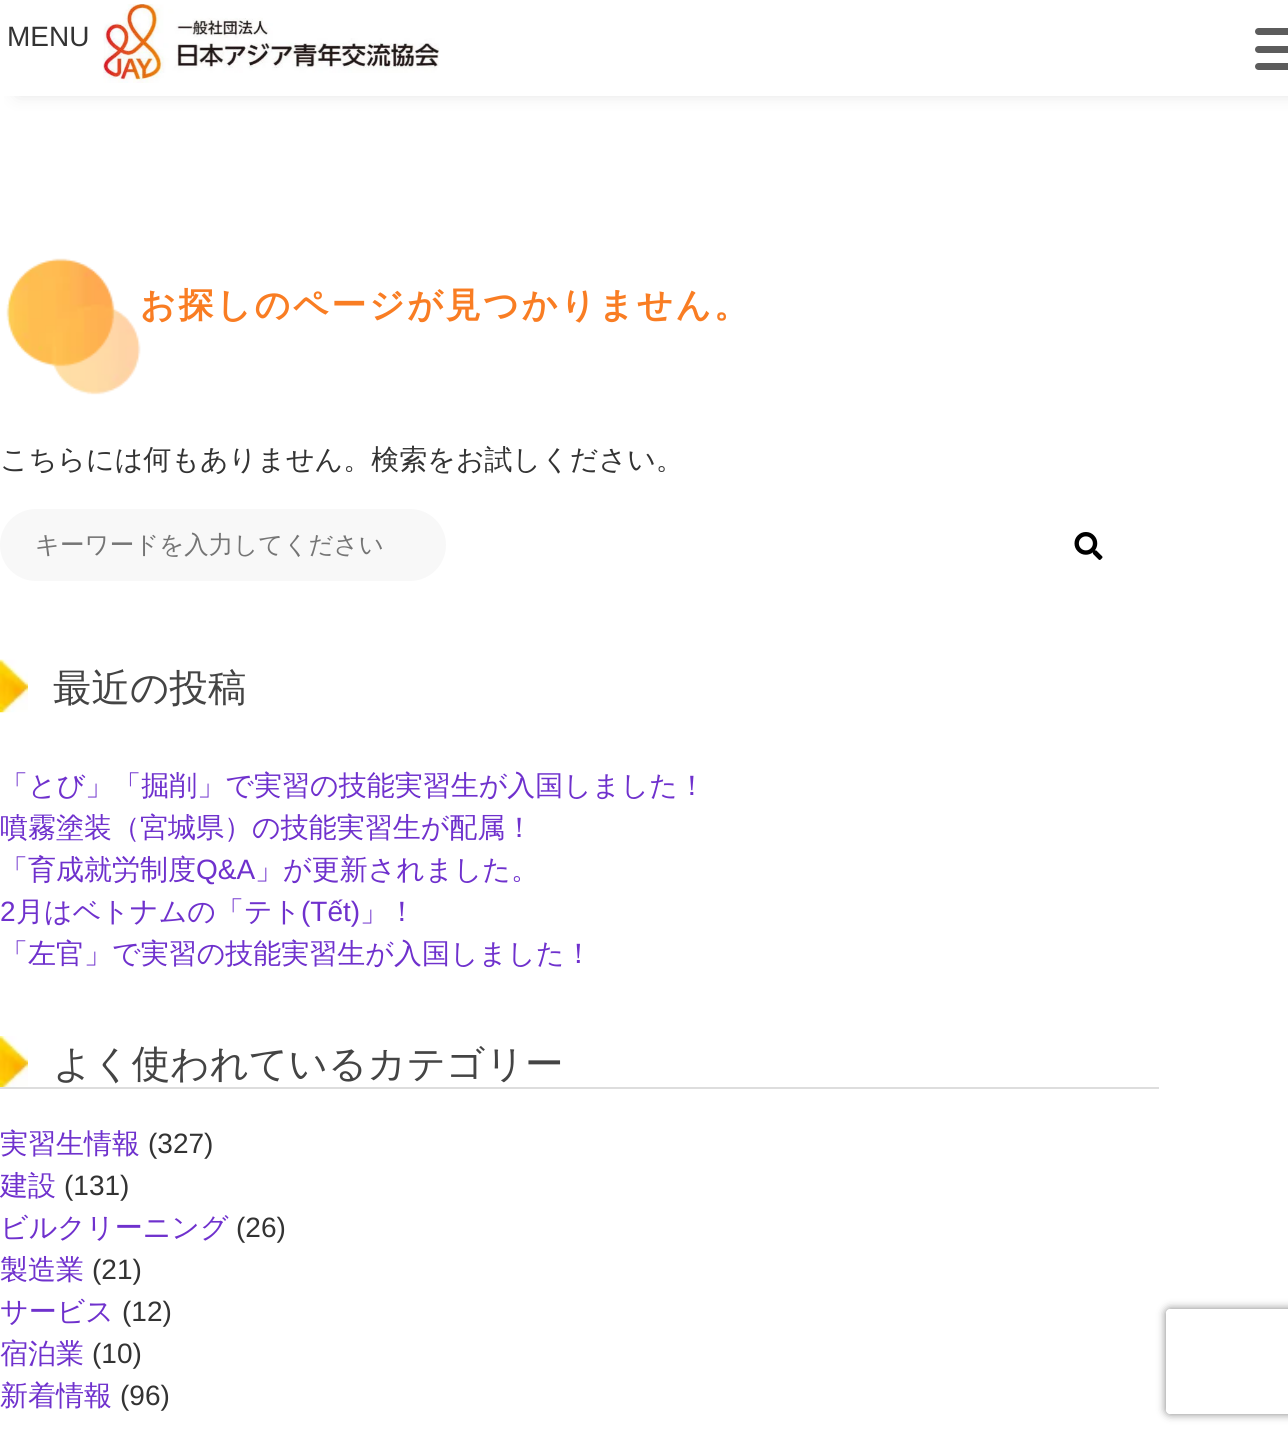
import math
import cairo

surface = cairo.ImageSurface(cairo.FORMAT_RGB24, 1288, 1437)
ctx = cairo.Context(surface)
options = cairo.FontOptions()
options.set_hint_metrics(cairo.HINT_METRICS_OFF)
options.set_hint_style(cairo.HINT_STYLE_NONE)
ctx.set_font_options(options)
ctx.set_miter_limit(4)


def spaced_text(x, y, s, letter, word):
    ctx.move_to(x, y)
    for ch in s:
        ctx.show_text(ch)
        ctx.rel_move_to(letter + word * (ch == ' '), 0)


def round_rect(x, y, w, h, r):
    ctx.new_sub_path()
    for i, (u, v) in enumerate([(x + w - r, y + h - r), (x + r, y + h - r), (x + r, y + r), (x + w - r, y + r)]):
        ctx.arc(u, v, r, i * math.pi / 2, (i + 1) * math.pi / 2)
    ctx.close_path()


def shadow(x, y, w, h, r, blur, alpha):
    ctx.push_group_with_content(cairo.CONTENT_ALPHA)
    ctx.set_operator(cairo.OPERATOR_SOURCE)
    for i in range(15, -16, -2):
        e = blur * i / 6
        if min(w, h) + 2 * e > 0:
            ctx.set_source_rgba(0, 0, 0, alpha * math.erfc((i - 1) / 8.5) / 2)
            round_rect(x - e, y - e, w + 2 * e, h + 2 * e, max(0, min(r + e + blur * .6, min(w, h) / 2 + e)))
            ctx.fill()
    ctx.mask(ctx.pop_group())


def picture(path, x, y, w, h):
    ctx.save()
    ctx.set_source_surface(cairo.ImageSurface.create_from_png(path), x, y)
    ctx.rectangle(x, y, w, h)
    ctx.fill()
    ctx.restore()


ctx.set_source_rgb(1, 1, 1)
ctx.paint()
ctx.save()
ctx.rectangle(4, 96, 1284, 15)
ctx.clip()
ctx.set_source_rgb(0.867, 0.867, 0.867)
shadow(18, 32, 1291, 61, 0, 9, 1)
ctx.restore()
ctx.select_font_face("Liberation Sans")
ctx.set_font_size(28)
ctx.set_source_rgb(0.2, 0.2, 0.2)
ctx.move_to(7, 46)
ctx.show_text("MENU")
picture("img1.png", 103, 4, 337, 79)
ctx.set_source_rgb(0.361, 0.361, 0.361)
round_rect(1255, 28, 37, 7, 3.5)
ctx.fill()
round_rect(1255, 46, 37, 7, 3.5)
ctx.fill()
round_rect(1255, 63, 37, 7, 3.5)
ctx.fill()
picture("img2.png", 6, 258, 135, 137)
ctx.select_font_face("WenQuanYi Zen Hei", cairo.FONT_SLANT_NORMAL, cairo.FONT_WEIGHT_BOLD)
ctx.set_font_size(35)
ctx.set_source_rgb(0.976, 0.49, 0.137)
spaced_text(140, 317, "お探しのページが見つかりません。", 2.6, 0)
ctx.select_font_face("WenQuanYi Zen Hei Medium")
ctx.set_font_size(28)
ctx.set_source_rgb(0.2, 0.2, 0.2)
ctx.move_to(0, 469)
ctx.show_text("こちらには何もありません。検索をお試しください。")
ctx.set_source_rgb(0.969, 0.969, 0.969)
round_rect(0, 509, 446, 72, 36)
ctx.fill()
ctx.set_font_size(24.5)
ctx.set_source_rgb(0.459, 0.459, 0.459)
ctx.move_to(35, 553)
ctx.show_text("キーワードを入力してください")
picture("img3.png", 1074, 532, 29, 28)
picture("img4.png", 0, 659, 28, 54)
ctx.set_font_size(38.5)
ctx.set_source_rgb(0.267, 0.267, 0.267)
ctx.move_to(53, 701)
ctx.show_text("最近の投稿")
ctx.set_font_size(28)
ctx.set_source_rgb(0.435, 0.192, 0.804)
ctx.move_to(0, 795)
ctx.show_text("「とび」「掘削」で実習の技能実習生が入国しました！")
ctx.move_to(0, 837)
ctx.show_text("噴霧塗装（宮城県）の技能実習生が配属！")
ctx.move_to(0, 879)
ctx.show_text("「育成就労制度")
ctx.select_font_face("Liberation Sans")
ctx.move_to(196, 879)
ctx.show_text("Q&A")
ctx.select_font_face("WenQuanYi Zen Hei Medium")
ctx.move_to(255, 879)
ctx.show_text("」が更新されました。")
ctx.select_font_face("Liberation Sans")
ctx.move_to(0, 921)
ctx.show_text("2")
ctx.select_font_face("WenQuanYi Zen Hei Medium")
ctx.move_to(16, 921)
ctx.show_text("月はベトナムの「テト")
ctx.select_font_face("Liberation Sans")
ctx.move_to(301, 921)
ctx.show_text("(Tết)")
ctx.select_font_face("WenQuanYi Zen Hei Medium")
ctx.move_to(360, 921)
ctx.show_text("」！")
ctx.move_to(0, 963)
ctx.show_text("「左官」で実習の技能実習生が入国しました！")
picture("img5.png", 0, 1036, 28, 51)
ctx.set_source_rgb(0.867, 0.867, 0.867)
ctx.rectangle(0, 1087, 1159, 2)
ctx.fill()
ctx.set_font_size(38.5)
ctx.set_source_rgb(0.267, 0.267, 0.267)
ctx.move_to(53, 1077)
ctx.show_text("よく使われているカテゴリー")
ctx.set_font_size(28)
ctx.set_source_rgb(0.435, 0.192, 0.804)
ctx.move_to(0, 1153)
ctx.show_text("実習生情報")
ctx.select_font_face("Liberation Sans")
ctx.set_source_rgb(0.2, 0.2, 0.2)
ctx.move_to(148, 1153)
ctx.show_text("(327)")
ctx.select_font_face("WenQuanYi Zen Hei Medium")
ctx.set_source_rgb(0.435, 0.192, 0.804)
ctx.move_to(0, 1195)
ctx.show_text("建設")
ctx.select_font_face("Liberation Sans")
ctx.set_source_rgb(0.2, 0.2, 0.2)
ctx.move_to(64, 1195)
ctx.show_text("(131)")
ctx.select_font_face("WenQuanYi Zen Hei Medium")
ctx.set_source_rgb(0.435, 0.192, 0.804)
ctx.move_to(0, 1237)
ctx.show_text("ビルクリーニング")
ctx.select_font_face("Liberation Sans")
ctx.set_source_rgb(0.2, 0.2, 0.2)
ctx.move_to(236, 1237)
ctx.show_text("(26)")
ctx.select_font_face("WenQuanYi Zen Hei Medium")
ctx.set_source_rgb(0.435, 0.192, 0.804)
ctx.move_to(0, 1279)
ctx.show_text("製造業")
ctx.select_font_face("Liberation Sans")
ctx.set_source_rgb(0.2, 0.2, 0.2)
ctx.move_to(92, 1279)
ctx.show_text("(21)")
ctx.select_font_face("WenQuanYi Zen Hei Medium")
ctx.set_source_rgb(0.435, 0.192, 0.804)
ctx.move_to(0, 1321)
ctx.show_text("サービス")
ctx.select_font_face("Liberation Sans")
ctx.set_source_rgb(0.2, 0.2, 0.2)
ctx.move_to(122, 1321)
ctx.show_text("(12)")
ctx.select_font_face("WenQuanYi Zen Hei Medium")
ctx.set_source_rgb(0.435, 0.192, 0.804)
ctx.move_to(0, 1363)
ctx.show_text("宿泊業")
ctx.select_font_face("Liberation Sans")
ctx.set_source_rgb(0.2, 0.2, 0.2)
ctx.move_to(92, 1363)
ctx.show_text("(10)")
ctx.select_font_face("WenQuanYi Zen Hei Medium")
ctx.set_source_rgb(0.435, 0.192, 0.804)
ctx.move_to(0, 1405)
ctx.show_text("新着情報")
ctx.select_font_face("Liberation Sans")
ctx.set_source_rgb(0.2, 0.2, 0.2)
ctx.move_to(120, 1405)
ctx.show_text("(96)")
ctx.save()
ctx.set_fill_rule(cairo.FILL_RULE_EVEN_ODD)
ctx.new_path()
ctx.move_to(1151, 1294)
ctx.line_to(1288, 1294)
ctx.line_to(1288, 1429)
ctx.line_to(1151, 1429)
ctx.close_path()
ctx.move_to(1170, 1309)
ctx.line_to(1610, 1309)
ctx.curve_to(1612, 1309, 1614, 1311, 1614, 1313)
ctx.line_to(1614, 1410)
ctx.curve_to(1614, 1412, 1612, 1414, 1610, 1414)
ctx.line_to(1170, 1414)
ctx.curve_to(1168, 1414, 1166, 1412, 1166, 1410)
ctx.line_to(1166, 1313)
ctx.curve_to(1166, 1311, 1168, 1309, 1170, 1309)
ctx.close_path()
ctx.clip()
ctx.set_source_rgb(0.502, 0.502, 0.502)
shadow(1166, 1309, 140, 105, 4, 4.5, 1)
ctx.restore()
surface.write_to_png("page.png")
